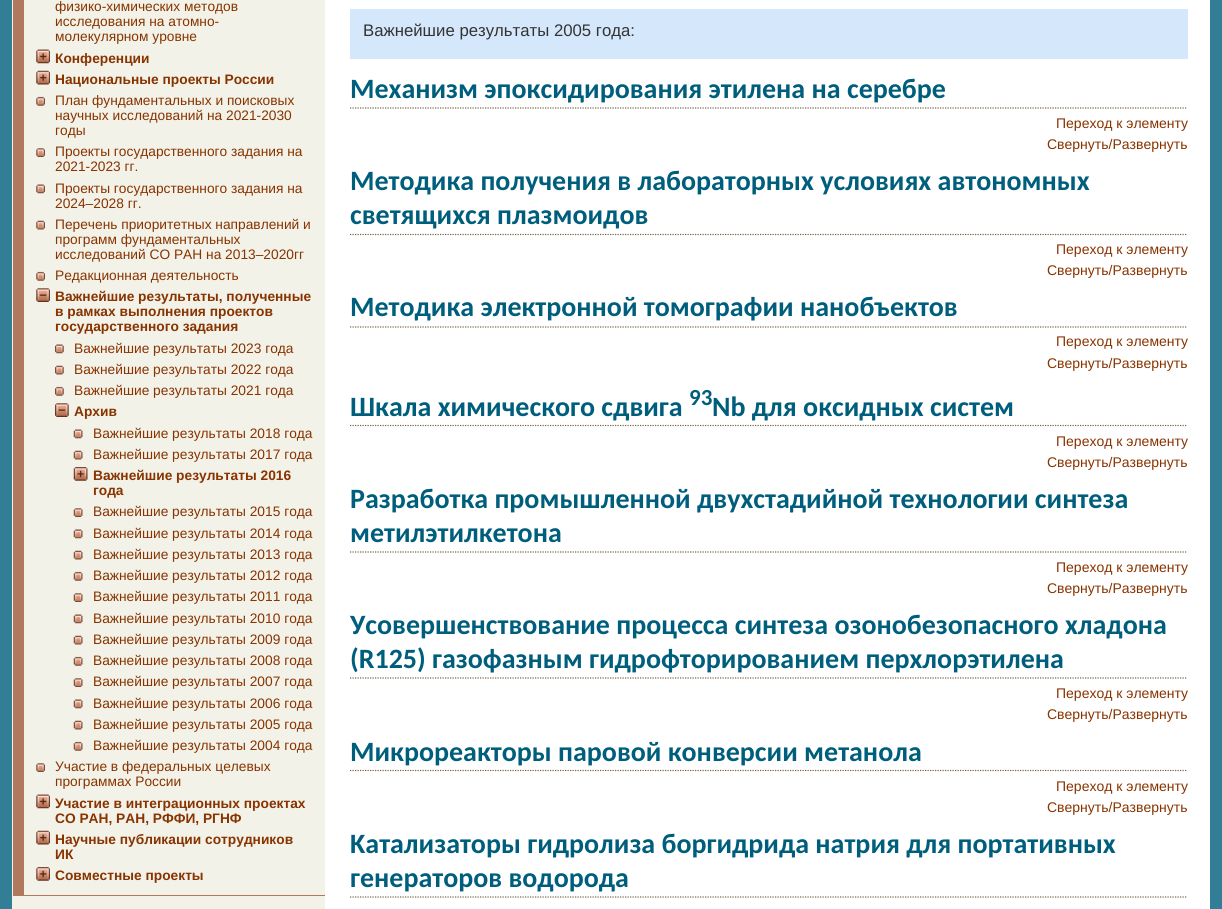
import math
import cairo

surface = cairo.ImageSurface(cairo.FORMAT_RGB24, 1222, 909)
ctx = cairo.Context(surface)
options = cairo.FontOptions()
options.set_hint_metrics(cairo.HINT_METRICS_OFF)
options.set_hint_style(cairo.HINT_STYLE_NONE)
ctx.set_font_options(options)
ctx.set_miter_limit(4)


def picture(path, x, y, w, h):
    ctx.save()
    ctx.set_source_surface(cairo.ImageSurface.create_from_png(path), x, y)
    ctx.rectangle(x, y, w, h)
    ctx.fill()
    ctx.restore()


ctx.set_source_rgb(0.2, 0.494, 0.592)
ctx.paint()
ctx.set_source_rgb(1, 1, 1)
ctx.rectangle(325, 0, 885, 909)
ctx.fill()
ctx.set_source_rgb(0.949, 0.949, 0.91)
ctx.rectangle(12, 0, 313, 909)
ctx.fill()
ctx.set_source_rgb(0.69, 0.471, 0.361)
ctx.rectangle(24, 895, 301, 1)
ctx.fill()
ctx.rectangle(13, 0, 11, 896)
ctx.fill()
ctx.select_font_face("Liberation Sans")
ctx.set_font_size(13.75)
ctx.set_source_rgb(0.533, 0.2, 0)
ctx.move_to(55, 11)
ctx.show_text("физико-химических методов")
ctx.move_to(55, 26)
ctx.show_text("исследования на атомно-")
ctx.move_to(55, 41)
ctx.show_text("молекулярном уровне")
picture("img1.png", 36, 49, 14, 15)
ctx.select_font_face("Liberation Sans", cairo.FONT_SLANT_NORMAL, cairo.FONT_WEIGHT_BOLD)
ctx.move_to(55, 63)
ctx.show_text("Конференции")
picture("img2.png", 36, 70, 14, 15)
ctx.move_to(55, 84)
ctx.show_text("Национальные проекты России")
picture("img3.png", 36, 96, 9, 10)
ctx.select_font_face("Liberation Sans")
ctx.move_to(55, 105)
ctx.show_text("План фундаментальных и поисковых")
ctx.move_to(55, 120)
ctx.show_text("научных исследований на 2021-2030")
ctx.move_to(55, 135)
ctx.show_text("годы")
picture("img4.png", 36, 148, 9, 9)
ctx.move_to(55, 156)
ctx.show_text("Проекты государственного задания на")
ctx.move_to(55, 171)
ctx.show_text("2021-2023 гг.")
picture("img5.png", 36, 184, 9, 10)
ctx.move_to(55, 193)
ctx.show_text("Проекты государственного задания на")
ctx.move_to(55, 208)
ctx.show_text("2024–2028 гг.")
picture("img6.png", 36, 220, 9, 10)
ctx.move_to(55, 229)
ctx.show_text("Перечень приоритетных направлений и")
ctx.move_to(55, 244)
ctx.show_text("программ фундаментальных")
ctx.move_to(55, 259)
ctx.show_text("исследований СО РАН на 2013–2020гг")
picture("img3.png", 36, 271, 9, 10)
ctx.move_to(55, 280)
ctx.show_text("Редакционная деятельность")
picture("img7.png", 36, 288, 14, 14)
ctx.select_font_face("Liberation Sans", cairo.FONT_SLANT_NORMAL, cairo.FONT_WEIGHT_BOLD)
ctx.move_to(55, 301)
ctx.show_text("Важнейшие результаты, полученные")
ctx.move_to(55, 316)
ctx.show_text("в рамках выполнения проектов")
ctx.move_to(55, 331)
ctx.show_text("государственного задания")
picture("img8.png", 55, 344, 9, 10)
ctx.select_font_face("Liberation Sans")
ctx.move_to(74, 353)
ctx.show_text("Важнейшие результаты 2023 года")
picture("img9.png", 55, 365, 9, 10)
ctx.move_to(74, 374)
ctx.show_text("Важнейшие результаты 2022 года")
picture("img10.png", 55, 386, 9, 10)
ctx.move_to(74, 395)
ctx.show_text("Важнейшие результаты 2021 года")
picture("img11.png", 55, 403, 14, 14)
ctx.select_font_face("Liberation Sans", cairo.FONT_SLANT_NORMAL, cairo.FONT_WEIGHT_BOLD)
ctx.move_to(74, 416)
ctx.show_text("Архив")
picture("img12.png", 73, 429, 10, 10)
ctx.select_font_face("Liberation Sans")
ctx.move_to(93, 438)
ctx.show_text("Важнейшие результаты 2018 года")
picture("img13.png", 73, 450, 10, 10)
ctx.move_to(93, 459)
ctx.show_text("Важнейшие результаты 2017 года")
picture("img14.png", 73, 467, 15, 14)
ctx.select_font_face("Liberation Sans", cairo.FONT_SLANT_NORMAL, cairo.FONT_WEIGHT_BOLD)
ctx.move_to(93, 480)
ctx.show_text("Важнейшие результаты 2016")
ctx.move_to(93, 495)
ctx.show_text("года")
picture("img15.png", 73, 508, 10, 9)
ctx.select_font_face("Liberation Sans")
ctx.move_to(93, 516)
ctx.show_text("Важнейшие результаты 2015 года")
picture("img12.png", 73, 529, 10, 10)
ctx.move_to(93, 538)
ctx.show_text("Важнейшие результаты 2014 года")
picture("img16.png", 73, 550, 10, 10)
ctx.move_to(93, 559)
ctx.show_text("Важнейшие результаты 2013 года")
picture("img17.png", 73, 571, 10, 10)
ctx.move_to(93, 580)
ctx.show_text("Важнейшие результаты 2012 года")
picture("img15.png", 73, 593, 10, 9)
ctx.move_to(93, 601)
ctx.show_text("Важнейшие результаты 2011 года")
picture("img12.png", 73, 614, 10, 10)
ctx.move_to(93, 623)
ctx.show_text("Важнейшие результаты 2010 года")
picture("img13.png", 73, 635, 10, 10)
ctx.move_to(93, 644)
ctx.show_text("Важнейшие результаты 2009 года")
picture("img17.png", 73, 656, 10, 10)
ctx.move_to(93, 665)
ctx.show_text("Важнейшие результаты 2008 года")
picture("img15.png", 73, 678, 10, 9)
ctx.move_to(93, 686)
ctx.show_text("Важнейшие результаты 2007 года")
picture("img12.png", 73, 699, 10, 10)
ctx.move_to(93, 708)
ctx.show_text("Важнейшие результаты 2006 года")
picture("img13.png", 73, 720, 10, 10)
ctx.move_to(93, 729)
ctx.show_text("Важнейшие результаты 2005 года")
picture("img17.png", 73, 741, 10, 10)
ctx.move_to(93, 750)
ctx.show_text("Важнейшие результаты 2004 года")
picture("img4.png", 36, 763, 9, 9)
ctx.move_to(55, 771)
ctx.show_text("Участие в федеральных целевых")
ctx.move_to(55, 786)
ctx.show_text("программах России")
picture("img18.png", 36, 794, 14, 15)
ctx.select_font_face("Liberation Sans", cairo.FONT_SLANT_NORMAL, cairo.FONT_WEIGHT_BOLD)
ctx.move_to(55, 808)
ctx.show_text("Участие в интеграционных проектах")
ctx.move_to(55, 823)
ctx.show_text("СО РАН, РАН, РФФИ, РГНФ")
picture("img2.png", 36, 830, 14, 15)
ctx.move_to(55, 844)
ctx.show_text("Научные публикации сотрудников")
ctx.move_to(55, 859)
ctx.show_text("ИК")
picture("img19.png", 36, 867, 14, 14)
ctx.move_to(55, 880)
ctx.show_text("Совместные проекты")
ctx.set_source_rgb(0.835, 0.906, 0.984)
ctx.rectangle(350, 9, 838, 50)
ctx.fill()
ctx.select_font_face("Liberation Sans")
ctx.set_font_size(16.75)
ctx.set_source_rgb(0.2, 0.2, 0.2)
ctx.move_to(363, 36)
ctx.show_text("Важнейшие результаты 2005 года:")
ctx.new_path()
ctx.move_to(350, 108)
ctx.line_to(1187.5, 108)
ctx.set_source_rgb(0.471, 0.388, 0.29)
ctx.set_line_width(1.2)
ctx.set_dash([1.25, 1.25])
ctx.stroke()
ctx.select_font_face("Carlito", cairo.FONT_SLANT_NORMAL, cairo.FONT_WEIGHT_BOLD)
ctx.set_font_size(28)
ctx.set_source_rgb(0, 0.369, 0.49)
ctx.move_to(350, 98)
ctx.show_text("Механизм эпоксидирования этилена на серебре")
ctx.select_font_face("Liberation Sans")
ctx.set_font_size(14)
ctx.set_source_rgb(0.533, 0.2, 0)
ctx.move_to(1056, 128)
ctx.show_text("Переход к элементу")
ctx.move_to(1047, 149)
ctx.show_text("Свернуть/Развернуть")
ctx.new_path()
ctx.move_to(350, 234.5)
ctx.line_to(1187.5, 234.5)
ctx.set_source_rgb(0.471, 0.388, 0.29)
ctx.stroke()
ctx.select_font_face("Carlito", cairo.FONT_SLANT_NORMAL, cairo.FONT_WEIGHT_BOLD)
ctx.set_font_size(28)
ctx.set_source_rgb(0, 0.369, 0.49)
ctx.move_to(350, 190)
ctx.show_text("Методика получения в лабораторных условиях автономных")
ctx.move_to(350, 224)
ctx.show_text("светящихся плазмоидов")
ctx.select_font_face("Liberation Sans")
ctx.set_font_size(14)
ctx.set_source_rgb(0.533, 0.2, 0)
ctx.move_to(1056, 254)
ctx.show_text("Переход к элементу")
ctx.move_to(1047, 275)
ctx.show_text("Свернуть/Развернуть")
ctx.new_path()
ctx.move_to(350, 327)
ctx.line_to(1187.5, 327)
ctx.set_source_rgb(0.471, 0.388, 0.29)
ctx.stroke()
ctx.select_font_face("Carlito", cairo.FONT_SLANT_NORMAL, cairo.FONT_WEIGHT_BOLD)
ctx.set_font_size(28)
ctx.set_source_rgb(0, 0.369, 0.49)
ctx.move_to(350, 316)
ctx.show_text("Методика электронной томографии нанобъектов")
ctx.select_font_face("Liberation Sans")
ctx.set_font_size(14)
ctx.set_source_rgb(0.533, 0.2, 0)
ctx.move_to(1056, 346)
ctx.show_text("Переход к элементу")
ctx.move_to(1047, 368)
ctx.show_text("Свернуть/Развернуть")
ctx.new_path()
ctx.move_to(350, 425.5)
ctx.line_to(1187.5, 425.5)
ctx.set_source_rgb(0.471, 0.388, 0.29)
ctx.stroke()
ctx.select_font_face("Carlito", cairo.FONT_SLANT_NORMAL, cairo.FONT_WEIGHT_BOLD)
ctx.set_font_size(28)
ctx.set_source_rgb(0, 0.369, 0.49)
ctx.move_to(350, 416)
ctx.show_text("Шкала химического сдвига")
ctx.set_font_size(23)
ctx.move_to(689, 405)
ctx.show_text("93")
ctx.set_font_size(28)
ctx.move_to(712, 416)
ctx.show_text("Nb для оксидных систем")
ctx.select_font_face("Liberation Sans")
ctx.set_font_size(14)
ctx.set_source_rgb(0.533, 0.2, 0)
ctx.move_to(1056, 446)
ctx.show_text("Переход к элементу")
ctx.move_to(1047, 467)
ctx.show_text("Свернуть/Развернуть")
ctx.new_path()
ctx.move_to(350, 552)
ctx.line_to(1187.5, 552)
ctx.set_source_rgb(0.471, 0.388, 0.29)
ctx.stroke()
ctx.select_font_face("Carlito", cairo.FONT_SLANT_NORMAL, cairo.FONT_WEIGHT_BOLD)
ctx.set_font_size(28)
ctx.set_source_rgb(0, 0.369, 0.49)
ctx.move_to(350, 508)
ctx.show_text("Разработка промышленной двухстадийной технологии синтеза")
ctx.move_to(350, 542)
ctx.show_text("метилэтилкетона")
ctx.select_font_face("Liberation Sans")
ctx.set_font_size(14)
ctx.set_source_rgb(0.533, 0.2, 0)
ctx.move_to(1056, 572)
ctx.show_text("Переход к элементу")
ctx.move_to(1047, 593)
ctx.show_text("Свернуть/Развернуть")
ctx.new_path()
ctx.move_to(350, 678)
ctx.line_to(1187.5, 678)
ctx.set_source_rgb(0.471, 0.388, 0.29)
ctx.stroke()
ctx.select_font_face("Carlito", cairo.FONT_SLANT_NORMAL, cairo.FONT_WEIGHT_BOLD)
ctx.set_font_size(28)
ctx.set_source_rgb(0, 0.369, 0.49)
ctx.move_to(350, 634)
ctx.show_text("Усовершенствование процесса синтеза озонобезопасного хладона")
ctx.move_to(350, 668)
ctx.show_text("(R125) газофазным гидрофторированием перхлорэтилена")
ctx.select_font_face("Liberation Sans")
ctx.set_font_size(14)
ctx.set_source_rgb(0.533, 0.2, 0)
ctx.move_to(1056, 698)
ctx.show_text("Переход к элементу")
ctx.move_to(1047, 719)
ctx.show_text("Свернуть/Развернуть")
ctx.new_path()
ctx.move_to(350, 770.5)
ctx.line_to(1187.5, 770.5)
ctx.set_source_rgb(0.471, 0.388, 0.29)
ctx.stroke()
ctx.select_font_face("Carlito", cairo.FONT_SLANT_NORMAL, cairo.FONT_WEIGHT_BOLD)
ctx.set_font_size(28)
ctx.set_source_rgb(0, 0.369, 0.49)
ctx.move_to(350, 761)
ctx.show_text("Микрореакторы паровой конверсии метанола")
ctx.select_font_face("Liberation Sans")
ctx.set_font_size(14)
ctx.set_source_rgb(0.533, 0.2, 0)
ctx.move_to(1056, 791)
ctx.show_text("Переход к элементу")
ctx.move_to(1047, 812)
ctx.show_text("Свернуть/Развернуть")
ctx.new_path()
ctx.move_to(350, 897)
ctx.line_to(1187.5, 897)
ctx.set_source_rgb(0.471, 0.388, 0.29)
ctx.stroke()
ctx.select_font_face("Carlito", cairo.FONT_SLANT_NORMAL, cairo.FONT_WEIGHT_BOLD)
ctx.set_font_size(28)
ctx.set_source_rgb(0, 0.369, 0.49)
ctx.move_to(350, 853)
ctx.show_text("Kатализаторы гидролиза боргидрида натрия для портативных")
ctx.move_to(350, 887)
ctx.show_text("генераторов водорода")
surface.write_to_png("page.png")
